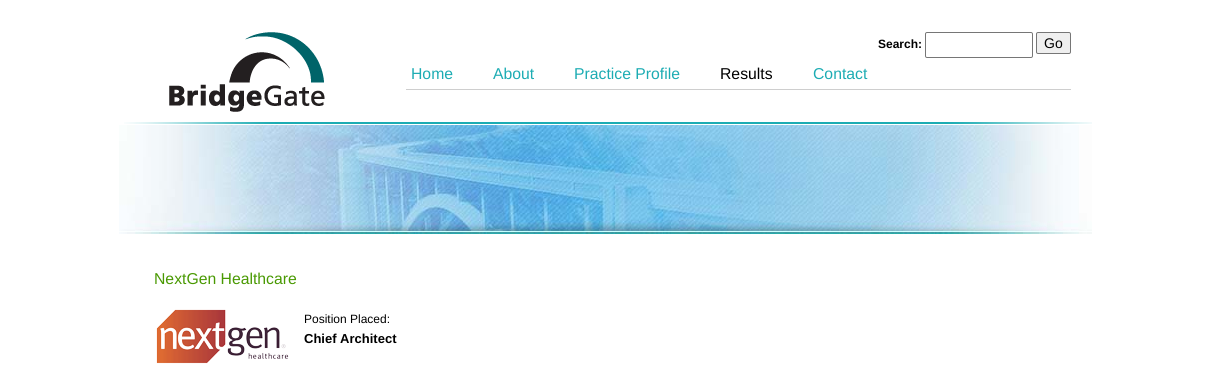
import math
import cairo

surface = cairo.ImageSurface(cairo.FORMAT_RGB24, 1211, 385)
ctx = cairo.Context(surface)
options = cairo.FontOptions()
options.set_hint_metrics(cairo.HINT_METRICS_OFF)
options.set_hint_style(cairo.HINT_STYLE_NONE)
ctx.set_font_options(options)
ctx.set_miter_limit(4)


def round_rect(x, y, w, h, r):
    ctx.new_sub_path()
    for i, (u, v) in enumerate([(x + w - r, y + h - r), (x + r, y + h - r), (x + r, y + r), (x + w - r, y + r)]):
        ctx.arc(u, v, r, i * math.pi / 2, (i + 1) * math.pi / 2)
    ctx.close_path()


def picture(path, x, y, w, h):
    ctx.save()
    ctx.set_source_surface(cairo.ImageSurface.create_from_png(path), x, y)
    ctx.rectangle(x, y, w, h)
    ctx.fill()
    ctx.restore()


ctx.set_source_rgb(1, 1, 1)
ctx.paint()
picture("img1.png", 124, 122, 968, 2)
picture("img2.png", 169, 32, 156, 80)
ctx.set_source_rgb(0.808, 0.808, 0.808)
ctx.rectangle(406, 89, 665, 1)
ctx.fill()
ctx.select_font_face("Liberation Sans", cairo.FONT_SLANT_NORMAL, cairo.FONT_WEIGHT_BOLD)
ctx.set_font_size(12)
ctx.set_source_rgb(0, 0, 0)
ctx.move_to(878, 48)
ctx.show_text("Search:")
round_rect(925.5, 32.5, 107, 25, 1.5)
ctx.set_source_rgb(0.463, 0.463, 0.463)
ctx.set_line_width(1)
ctx.stroke()
ctx.set_source_rgb(0.937, 0.937, 0.937)
round_rect(1036.5, 32.5, 34, 21, 1.5)
ctx.fill_preserve()
ctx.set_source_rgb(0.463, 0.463, 0.463)
ctx.stroke()
ctx.select_font_face("Liberation Sans")
ctx.set_font_size(14)
ctx.set_source_rgb(0, 0, 0)
ctx.move_to(1044, 48)
ctx.show_text("Go")
ctx.set_font_size(15.75)
ctx.set_source_rgb(0.11, 0.675, 0.702)
ctx.move_to(411, 79)
ctx.show_text("Home")
ctx.move_to(493, 79)
ctx.show_text("About")
ctx.move_to(574, 79)
ctx.show_text("Practice Profile")
ctx.set_source_rgb(0, 0, 0)
ctx.move_to(720, 79)
ctx.show_text("Results")
ctx.set_source_rgb(0.11, 0.675, 0.702)
ctx.move_to(813, 79)
ctx.show_text("Contact")
picture("img3.png", 119, 125, 973, 109)
ctx.set_source_rgb(0.286, 0.6, 0.008)
ctx.move_to(154, 284)
ctx.show_text("NextGen Healthcare")
picture("img4.png", 156, 309, 133, 55)
ctx.set_font_size(12)
ctx.set_source_rgb(0, 0, 0)
ctx.move_to(304, 323)
ctx.show_text("Position Placed:")
ctx.select_font_face("Liberation Sans", cairo.FONT_SLANT_NORMAL, cairo.FONT_WEIGHT_BOLD)
ctx.set_font_size(13)
ctx.move_to(304, 343)
ctx.show_text("Chief Architect")
surface.write_to_png("page.png")
